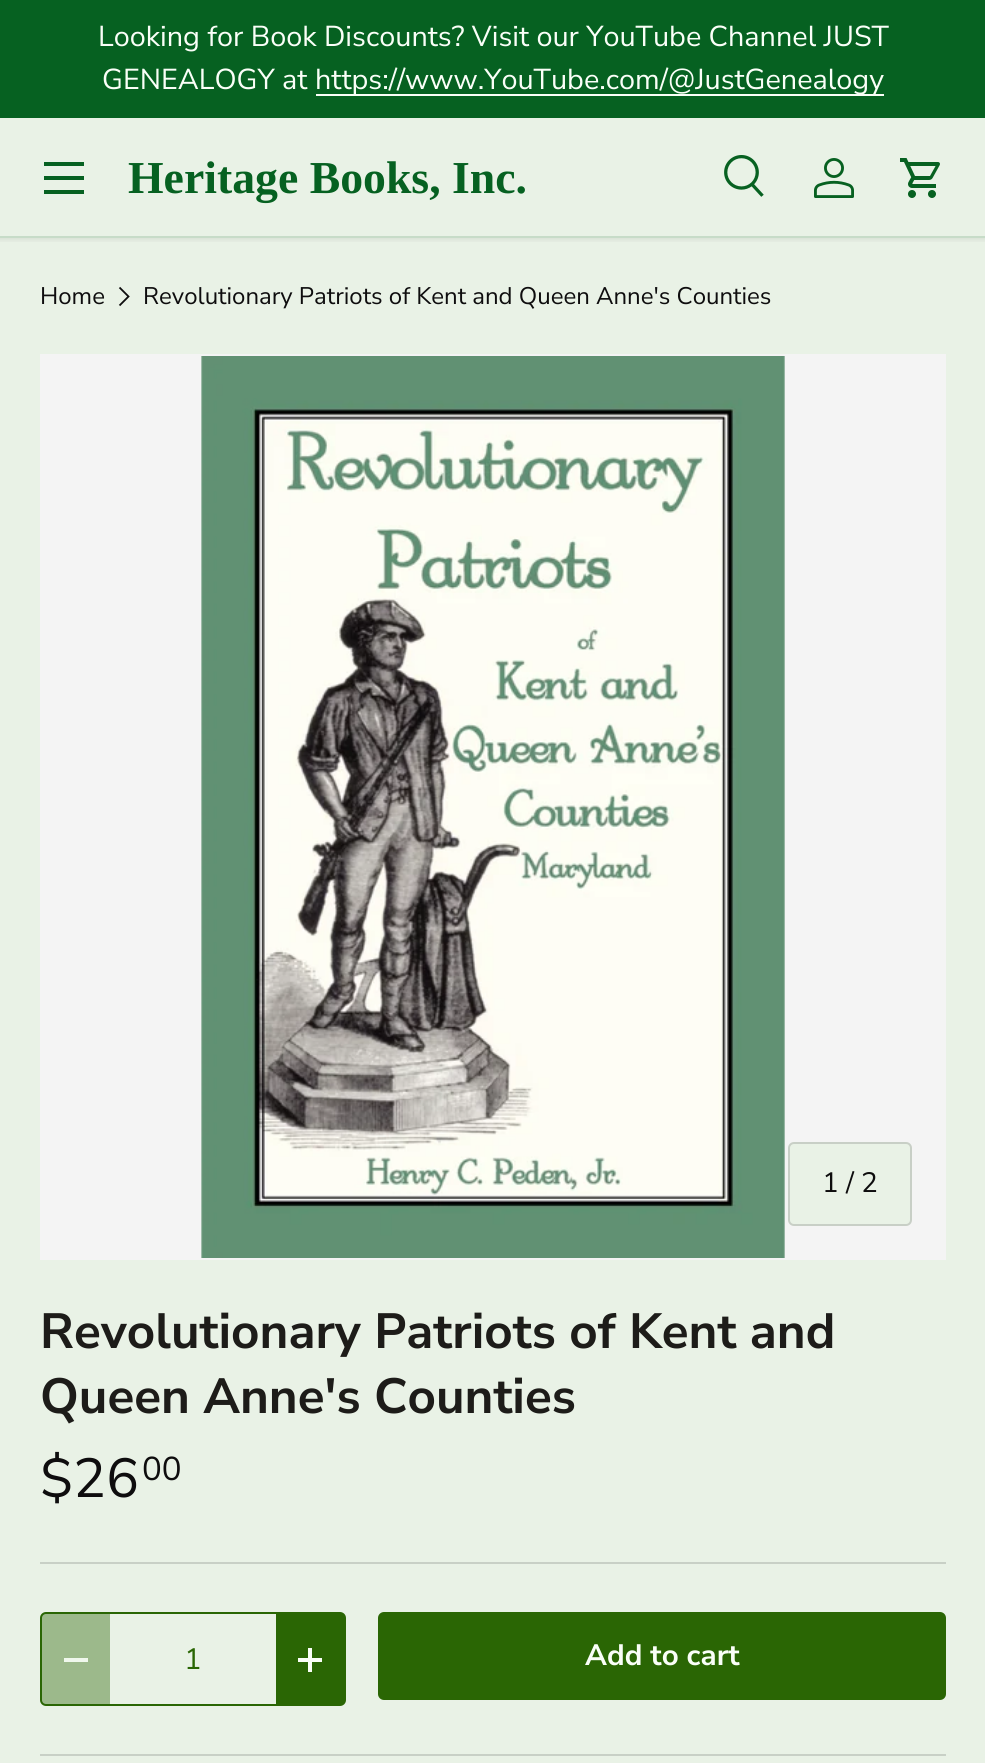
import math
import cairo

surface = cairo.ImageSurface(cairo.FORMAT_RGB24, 985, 1763)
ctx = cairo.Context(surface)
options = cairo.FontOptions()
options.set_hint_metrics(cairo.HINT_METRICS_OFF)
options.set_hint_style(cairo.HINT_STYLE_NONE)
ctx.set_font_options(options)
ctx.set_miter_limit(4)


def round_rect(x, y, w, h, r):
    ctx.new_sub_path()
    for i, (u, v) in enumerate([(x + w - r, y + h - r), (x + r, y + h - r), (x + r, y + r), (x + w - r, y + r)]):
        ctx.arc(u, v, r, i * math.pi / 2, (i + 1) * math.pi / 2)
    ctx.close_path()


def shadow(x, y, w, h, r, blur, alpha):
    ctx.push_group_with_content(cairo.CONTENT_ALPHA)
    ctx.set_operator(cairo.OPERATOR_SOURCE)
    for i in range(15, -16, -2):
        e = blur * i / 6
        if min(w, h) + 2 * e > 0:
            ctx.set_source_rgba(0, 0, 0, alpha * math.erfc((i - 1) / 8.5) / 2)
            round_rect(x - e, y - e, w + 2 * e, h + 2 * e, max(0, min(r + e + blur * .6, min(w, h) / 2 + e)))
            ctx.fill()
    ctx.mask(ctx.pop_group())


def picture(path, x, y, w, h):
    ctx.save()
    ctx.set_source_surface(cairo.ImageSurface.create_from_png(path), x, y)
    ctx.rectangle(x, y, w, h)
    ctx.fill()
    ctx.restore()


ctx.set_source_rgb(0.914, 0.949, 0.902)
ctx.paint()
ctx.save()
ctx.rectangle(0, 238, 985, 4)
ctx.clip()
ctx.set_source_rgb(0, 0, 0)
shadow(-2, 116, 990, 124, 0, 3, 0.08)
ctx.restore()
ctx.set_source_rgb(0.027, 0.38, 0.129)
ctx.rectangle(0, 0, 985, 118)
ctx.fill()
ctx.select_font_face("Nunito Sans")
ctx.set_font_size(28.8)
ctx.set_source_rgb(0.98, 1, 0.969)
ctx.move_to(98, 46)
ctx.show_text("Looking for Book Discounts? Visit our YouTube Channel JUST")
ctx.move_to(102, 89)
ctx.show_text("GENEALOGY at")
ctx.rectangle(316, 94, 568, 2)
ctx.fill()
ctx.move_to(315, 89)
ctx.show_text("https://www.YouTube.com/@JustGenealogy")
ctx.set_source_rgb(0.027, 0.38, 0.129)
ctx.rectangle(44, 162, 40, 4)
ctx.fill()
ctx.rectangle(44, 190, 40, 4)
ctx.fill()
ctx.rectangle(44, 176, 40, 4)
ctx.fill()
ctx.select_font_face("Liberation Serif", cairo.FONT_SLANT_NORMAL, cairo.FONT_WEIGHT_BOLD)
ctx.set_font_size(45.75)
ctx.move_to(128, 193)
ctx.show_text("Heritage Books, Inc.")
picture("img1.png", 724, 155, 40, 42)
picture("img2.png", 814, 158, 40, 40)
picture("img3.png", 900, 158, 40, 40)
ctx.set_source_rgb(0.78, 0.863, 0.784)
ctx.rectangle(0, 236, 985, 2)
ctx.fill()
ctx.select_font_face("Nunito Sans")
ctx.set_font_size(24)
ctx.set_source_rgb(0.055, 0.051, 0.055)
ctx.move_to(40, 304)
ctx.show_text("Home")
ctx.new_path()
ctx.move_to(119.5, 287.5)
ctx.line_to(128.5, 296.5)
ctx.line_to(119.5, 305.5)
ctx.set_line_width(1.8)
ctx.stroke()
ctx.move_to(143, 304)
ctx.show_text("Revolutionary Patriots of Kent and Queen Anne's Counties")
ctx.set_source_rgb(0.957, 0.957, 0.957)
ctx.rectangle(40, 354, 906, 906)
ctx.fill()
picture("img4.png", 201, 356, 584, 902)
ctx.set_source_rgb(0.914, 0.949, 0.902)
round_rect(788, 1142, 124, 84, 6)
ctx.fill()
round_rect(789, 1143, 122, 82, 5)
ctx.set_source_rgba(0.055, 0.051, 0.055, 0.15)
ctx.set_line_width(2)
ctx.stroke()
ctx.set_font_size(28)
ctx.set_source_rgb(0.055, 0.051, 0.055)
ctx.move_to(822, 1192)
ctx.show_text("1 / 2")
ctx.select_font_face("Nunito Sans", cairo.FONT_SLANT_NORMAL, cairo.FONT_WEIGHT_BOLD)
ctx.set_font_size(49.4)
ctx.set_source_rgb(0.114, 0.11, 0.098)
ctx.move_to(40, 1348)
ctx.show_text("Revolutionary Patriots of Kent and")
ctx.move_to(40, 1413)
ctx.show_text("Queen Anne's Counties")
ctx.select_font_face("Nunito Sans")
ctx.set_font_size(55)
ctx.set_source_rgb(0.055, 0.051, 0.055)
ctx.move_to(40, 1497)
ctx.show_text("$26")
ctx.set_font_size(33)
ctx.move_to(142, 1480)
ctx.show_text("00")
ctx.set_source_rgb(0.784, 0.816, 0.776)
ctx.rectangle(40, 1562, 906, 2)
ctx.fill()
round_rect(41, 1613, 304, 92, 5)
ctx.set_source_rgb(0.165, 0.4, 0.016)
ctx.stroke()
ctx.set_source_rgba(0.165, 0.4, 0.016, 0.4)
ctx.rectangle(42, 1614, 68, 90)
ctx.fill()
ctx.set_source_rgb(0.941, 0.969, 0.929)
ctx.rectangle(64, 1658, 24, 4)
ctx.fill()
ctx.set_font_size(29.5)
ctx.set_source_rgb(0.165, 0.4, 0.016)
ctx.move_to(184, 1669)
ctx.show_text("1")
ctx.rectangle(276, 1614, 68, 90)
ctx.fill()
ctx.set_source_rgb(0.98, 1, 0.969)
ctx.rectangle(298, 1658, 24, 4)
ctx.fill()
ctx.rectangle(308, 1648, 4, 24)
ctx.fill()
gradient = cairo.LinearGradient(-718, 1453, 906, 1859)
gradient.add_color_stop_rgba(0.6, 0.314, 0.537, 0.173, 1)
gradient.add_color_stop_rgba(0.6, 0.165, 0.4, 0.016, 1)
gradient.add_color_stop_rgba(1, 0.165, 0.4, 0.016, 1)
ctx.set_source(gradient)
round_rect(378, 1612, 568, 88, 6)
ctx.fill()
ctx.select_font_face("Nunito Sans", cairo.FONT_SLANT_NORMAL, cairo.FONT_WEIGHT_BOLD)
ctx.set_source_rgb(0.98, 1, 0.969)
ctx.move_to(585, 1665)
ctx.show_text("Add to cart")
ctx.set_source_rgb(0.784, 0.816, 0.776)
ctx.rectangle(40, 1754, 906, 2)
ctx.fill()
surface.write_to_png("page.png")
